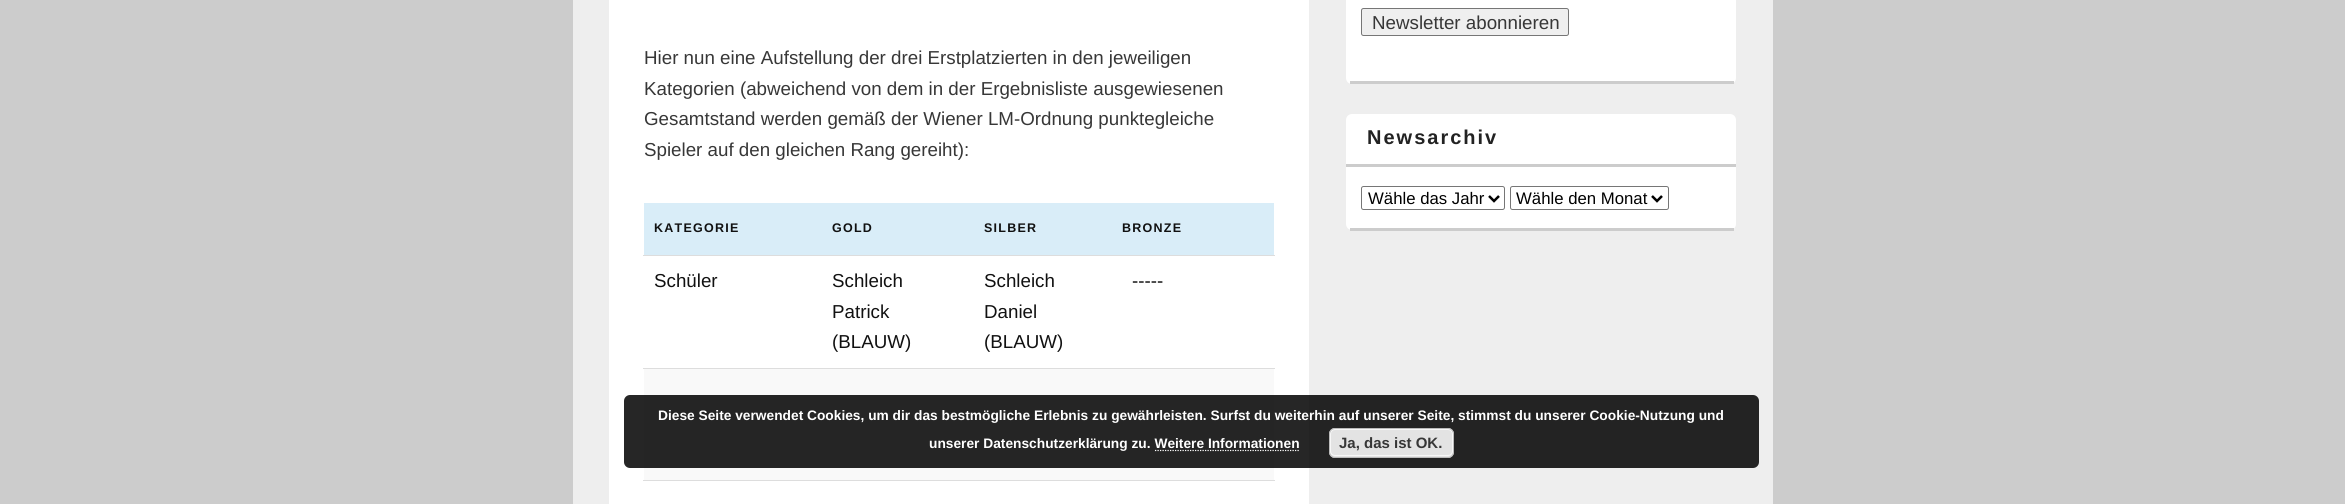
import math
import cairo

surface = cairo.ImageSurface(cairo.FORMAT_RGB24, 2345, 504)
ctx = cairo.Context(surface)
options = cairo.FontOptions()
options.set_hint_metrics(cairo.HINT_METRICS_OFF)
options.set_hint_style(cairo.HINT_STYLE_NONE)
ctx.set_font_options(options)
ctx.set_miter_limit(4)


def spaced_text(x, y, s, letter, word):
    ctx.move_to(x, y)
    for ch in s:
        ctx.show_text(ch)
        ctx.rel_move_to(letter + word * (ch == ' '), 0)


def round_rect(x, y, w, h, r):
    ctx.new_sub_path()
    for i, (u, v) in enumerate([(x + w - r, y + h - r), (x + r, y + h - r), (x + r, y + r), (x + w - r, y + r)]):
        ctx.arc(u, v, r, i * math.pi / 2, (i + 1) * math.pi / 2)
    ctx.close_path()


ctx.set_source_rgb(0.8, 0.8, 0.8)
ctx.paint()
ctx.set_source_rgb(0.933, 0.933, 0.933)
ctx.rectangle(573, 0, 1200, 504)
ctx.fill()
ctx.set_source_rgb(1, 1, 1)
ctx.rectangle(609, 0, 700, 504)
ctx.fill()
ctx.select_font_face("Liberation Sans")
ctx.set_font_size(18.75)
ctx.set_source_rgb(0.216, 0.216, 0.216)
ctx.move_to(644, 64)
ctx.show_text("Hier nun eine Aufstellung der drei Erstplatzierten in den jeweiligen")
ctx.move_to(644, 95)
ctx.show_text("Kategorien (abweichend von dem in der Ergebnisliste ausgewiesenen")
ctx.move_to(644, 125)
ctx.show_text("Gesamtstand werden gemäß der Wiener LM-Ordnung punktegleiche")
ctx.move_to(644, 156)
ctx.show_text("Spieler auf den gleichen Rang gereiht):")
ctx.set_source_rgb(0.851, 0.929, 0.969)
ctx.rectangle(644, 203, 630, 52)
ctx.fill()
ctx.select_font_face("Liberation Sans", cairo.FONT_SLANT_NORMAL, cairo.FONT_WEIGHT_BOLD)
ctx.set_font_size(12.5)
ctx.set_source_rgb(0.067, 0.067, 0.067)
spaced_text(654, 232, "KATEGORIE", 1.25, 0)
spaced_text(832, 232, "GOLD", 1.25, 0)
spaced_text(984, 232, "SILBER", 1.25, 0)
spaced_text(1122, 232, "BRONZE", 1.25, 0)
ctx.select_font_face("Liberation Sans")
ctx.set_font_size(18.75)
ctx.move_to(654, 287)
ctx.show_text("Schüler")
ctx.move_to(832, 287)
ctx.show_text("Schleich")
ctx.move_to(832, 318)
ctx.show_text("Patrick")
ctx.move_to(832, 348)
ctx.show_text("(BLAUW)")
ctx.move_to(984, 287)
ctx.show_text("Schleich")
ctx.move_to(984, 318)
ctx.show_text("Daniel")
ctx.move_to(984, 348)
ctx.show_text("(BLAUW)")
ctx.set_source_rgb(0.867, 0.867, 0.867)
ctx.rectangle(643, 255, 632, 1)
ctx.fill()
ctx.set_source_rgb(0.067, 0.067, 0.067)
ctx.move_to(1132, 287)
ctx.show_text("-----")
ctx.set_source_rgb(0.867, 0.867, 0.867)
ctx.rectangle(643, 368, 632, 1)
ctx.fill()
ctx.set_source_rgb(0.976, 0.976, 0.976)
ctx.rectangle(644, 369, 630, 111)
ctx.fill()
ctx.set_source_rgb(0.867, 0.867, 0.867)
ctx.rectangle(643, 480, 632, 1)
ctx.fill()
ctx.set_source_rgb(1, 1, 1)
round_rect(1346, -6, 390, 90, 6)
ctx.fill()
ctx.set_source_rgb(0.8, 0.8, 0.8)
ctx.rectangle(1350, 81, 384, 3)
ctx.fill()
ctx.set_source_rgb(0.937, 0.937, 0.937)
round_rect(1361.5, 8.5, 207, 27, 2)
ctx.fill_preserve()
ctx.set_source_rgb(0.463, 0.463, 0.463)
ctx.set_line_width(1)
ctx.stroke()
ctx.set_source_rgb(0.216, 0.216, 0.216)
ctx.move_to(1372, 29)
ctx.show_text("Newsletter abonnieren")
ctx.set_source_rgb(1, 1, 1)
round_rect(1346, 114, 390, 116, 6)
ctx.fill()
ctx.set_source_rgb(0.8, 0.8, 0.8)
ctx.rectangle(1350, 228, 384, 3)
ctx.fill()
ctx.rectangle(1346, 164, 390, 3)
ctx.fill()
ctx.select_font_face("Liberation Sans", cairo.FONT_SLANT_NORMAL, cairo.FONT_WEIGHT_BOLD)
ctx.set_font_size(20)
ctx.set_source_rgb(0.133, 0.133, 0.133)
spaced_text(1367, 144, "Newsarchiv", 2, 0)
round_rect(1361.5, 186.5, 143, 23, 2)
ctx.set_source_rgb(0.463, 0.463, 0.463)
ctx.stroke()
ctx.new_path()
ctx.move_to(1489, 196)
ctx.line_to(1494, 201)
ctx.line_to(1499, 196)
ctx.set_source_rgb(0, 0, 0)
ctx.set_line_width(2.5)
ctx.stroke()
ctx.select_font_face("Liberation Sans")
ctx.set_font_size(16.75)
ctx.move_to(1368, 204)
ctx.show_text("Wähle das Jahr")
round_rect(1510.5, 186.5, 158, 23, 2)
ctx.set_source_rgb(0.463, 0.463, 0.463)
ctx.set_line_width(1)
ctx.stroke()
ctx.new_path()
ctx.move_to(1652, 196)
ctx.line_to(1657, 201)
ctx.line_to(1662, 196)
ctx.set_source_rgb(0, 0, 0)
ctx.set_line_width(2.5)
ctx.stroke()
ctx.move_to(1516, 204)
ctx.show_text("Wähle den Monat")
ctx.set_source_rgba(0, 0, 0, 0.85)
round_rect(624, 395, 1135, 73, 6)
ctx.fill()
ctx.select_font_face("Liberation Sans", cairo.FONT_SLANT_NORMAL, cairo.FONT_WEIGHT_BOLD)
ctx.set_font_size(13.75)
ctx.set_source_rgb(1, 1, 1)
ctx.move_to(658, 420)
ctx.show_text("Diese Seite verwendet Cookies, um dir das bestmögliche Erlebnis zu gewährleisten. Surfst du weiterhin auf unserer Seite, stimmst du unserer Cookie-Nutzung und")
ctx.move_to(929, 448)
ctx.show_text("unserer Datenschutzerklärung zu. Weitere Informationen")
ctx.set_source_rgb(0.89, 0.89, 0.89)
round_rect(1329, 428, 125, 30, 6)
ctx.fill()
round_rect(1330.5, 429.5, 122, 26, 4.5)
ctx.set_source_rgb(0.965, 0.965, 0.965)
ctx.set_line_width(1)
ctx.stroke()
round_rect(1329.5, 428.5, 124, 29, 5.5)
ctx.set_source_rgb(0.733, 0.733, 0.733)
ctx.stroke()
ctx.set_font_size(15)
ctx.set_source_rgb(0.216, 0.216, 0.216)
ctx.move_to(1339, 448)
ctx.show_text("Ja, das ist OK.")
ctx.new_path()
ctx.move_to(1155, 450.5)
ctx.line_to(1300, 450.5)
ctx.set_source_rgb(1, 1, 1)
ctx.set_line_width(1.2)
ctx.set_dash([1.25, 1.25])
ctx.stroke()
surface.write_to_png("page.png")
